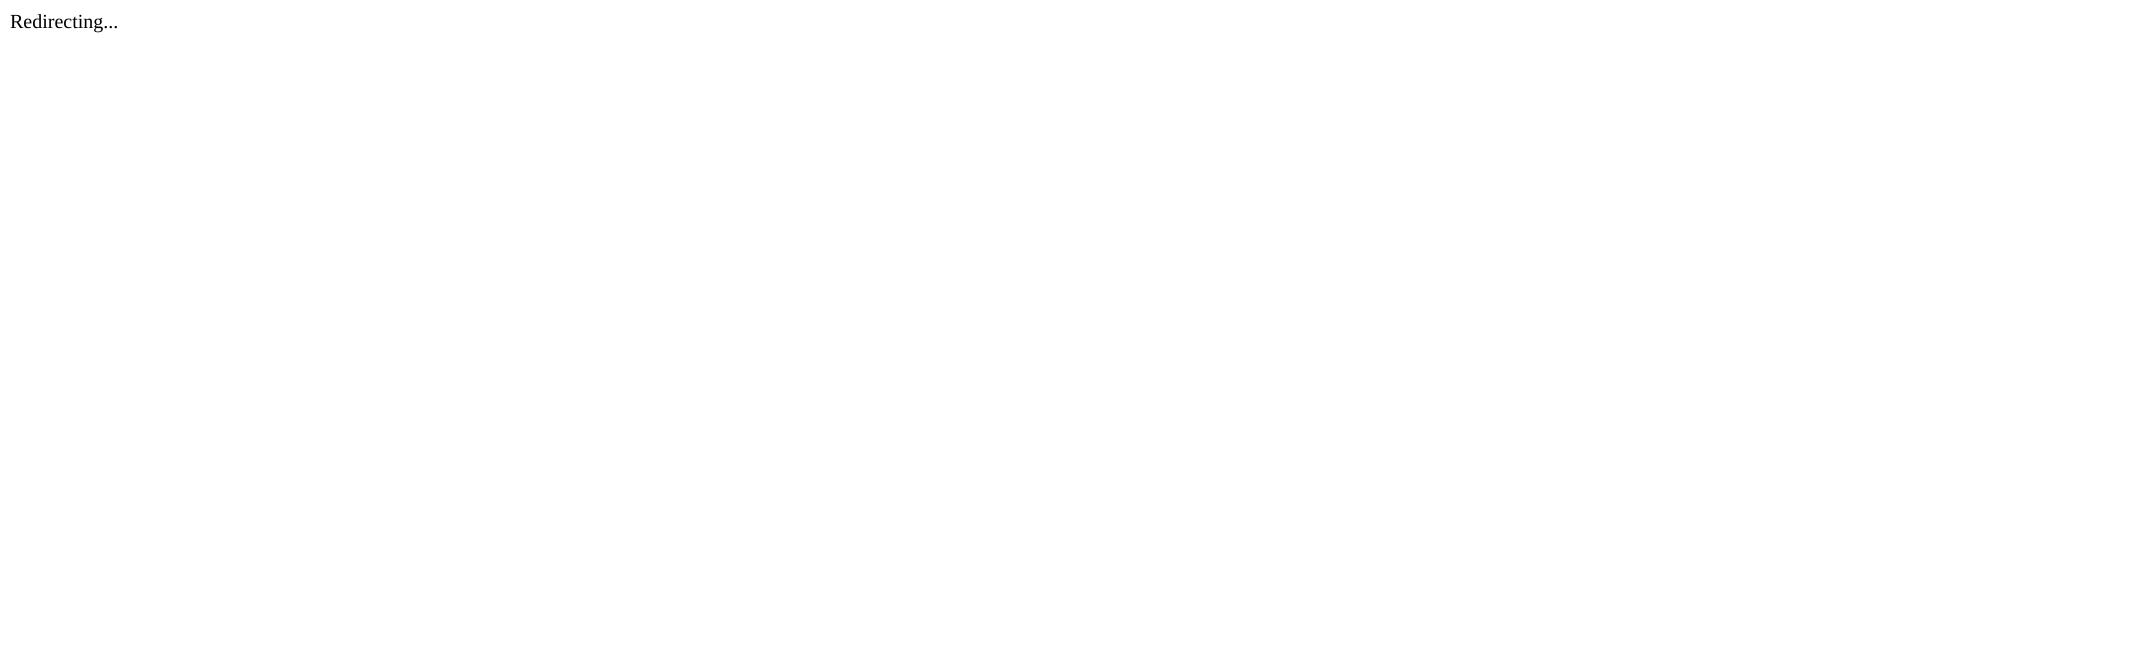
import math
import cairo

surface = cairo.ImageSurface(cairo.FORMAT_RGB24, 2142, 649)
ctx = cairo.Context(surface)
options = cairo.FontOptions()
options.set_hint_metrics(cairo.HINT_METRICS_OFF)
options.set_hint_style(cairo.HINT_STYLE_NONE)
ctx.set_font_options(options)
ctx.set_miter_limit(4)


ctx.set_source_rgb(1, 1, 1)
ctx.paint()
ctx.select_font_face("Liberation Serif")
ctx.set_font_size(20)
ctx.set_source_rgb(0, 0, 0)
ctx.move_to(10, 28)
ctx.show_text("Redirecting...")
surface.write_to_png("page.png")
